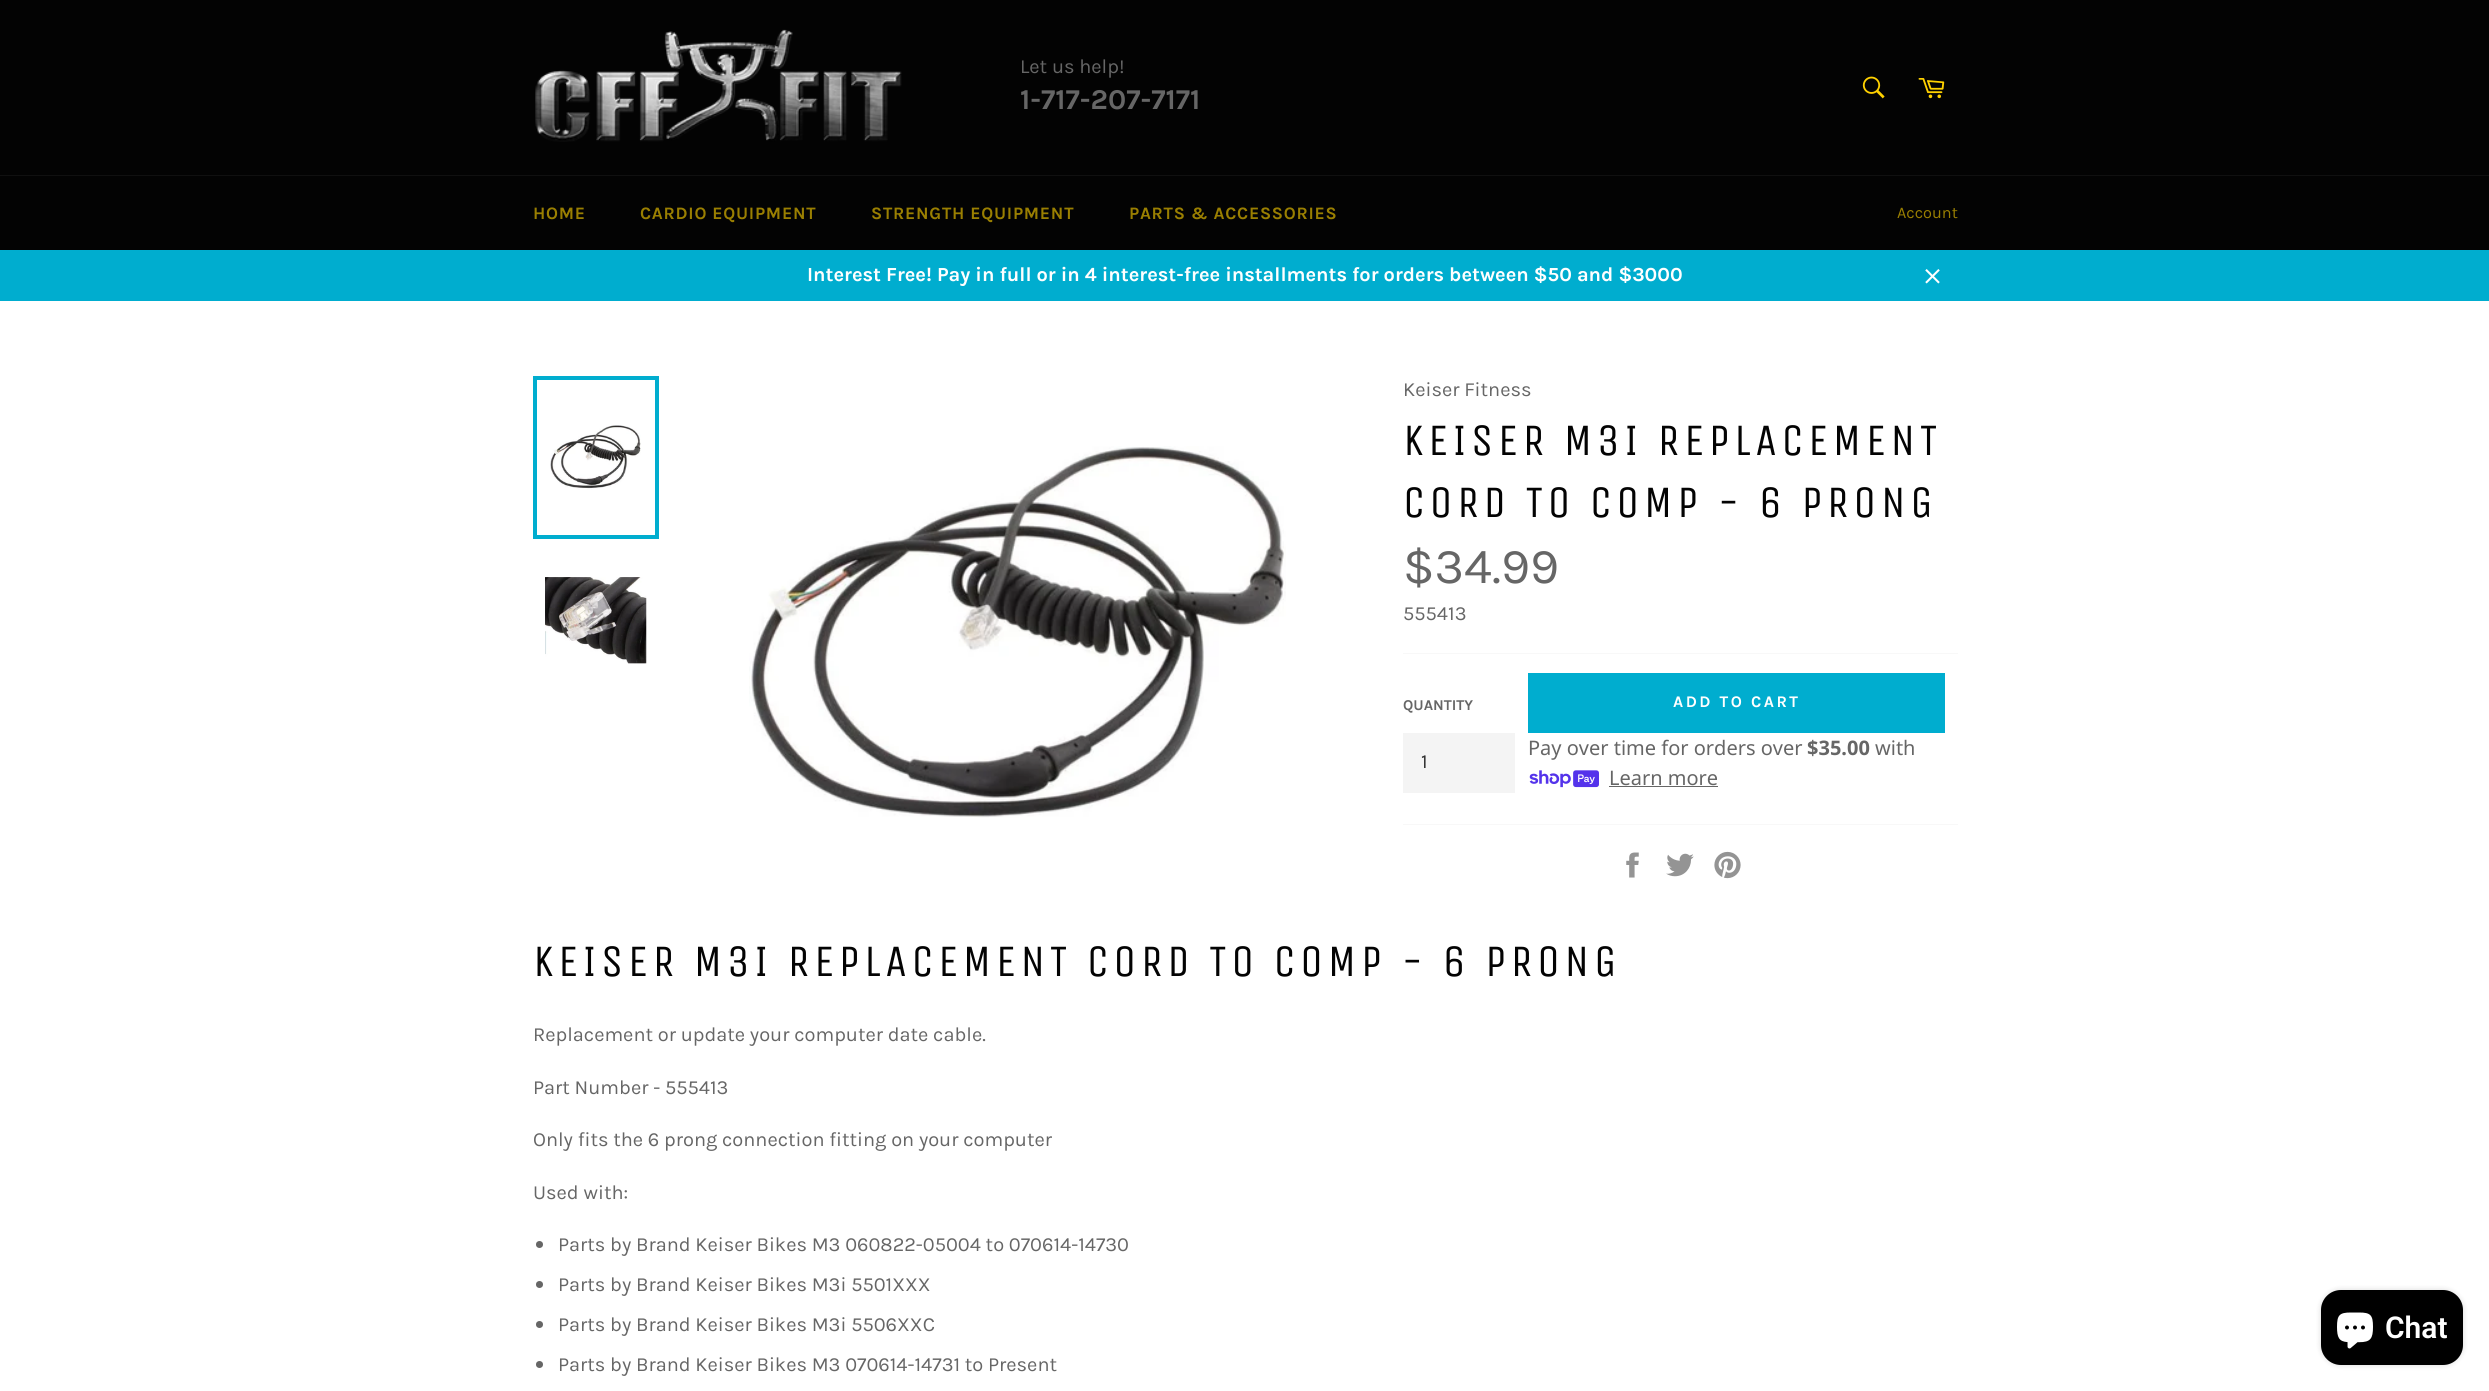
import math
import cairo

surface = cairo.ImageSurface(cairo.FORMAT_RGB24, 2489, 1391)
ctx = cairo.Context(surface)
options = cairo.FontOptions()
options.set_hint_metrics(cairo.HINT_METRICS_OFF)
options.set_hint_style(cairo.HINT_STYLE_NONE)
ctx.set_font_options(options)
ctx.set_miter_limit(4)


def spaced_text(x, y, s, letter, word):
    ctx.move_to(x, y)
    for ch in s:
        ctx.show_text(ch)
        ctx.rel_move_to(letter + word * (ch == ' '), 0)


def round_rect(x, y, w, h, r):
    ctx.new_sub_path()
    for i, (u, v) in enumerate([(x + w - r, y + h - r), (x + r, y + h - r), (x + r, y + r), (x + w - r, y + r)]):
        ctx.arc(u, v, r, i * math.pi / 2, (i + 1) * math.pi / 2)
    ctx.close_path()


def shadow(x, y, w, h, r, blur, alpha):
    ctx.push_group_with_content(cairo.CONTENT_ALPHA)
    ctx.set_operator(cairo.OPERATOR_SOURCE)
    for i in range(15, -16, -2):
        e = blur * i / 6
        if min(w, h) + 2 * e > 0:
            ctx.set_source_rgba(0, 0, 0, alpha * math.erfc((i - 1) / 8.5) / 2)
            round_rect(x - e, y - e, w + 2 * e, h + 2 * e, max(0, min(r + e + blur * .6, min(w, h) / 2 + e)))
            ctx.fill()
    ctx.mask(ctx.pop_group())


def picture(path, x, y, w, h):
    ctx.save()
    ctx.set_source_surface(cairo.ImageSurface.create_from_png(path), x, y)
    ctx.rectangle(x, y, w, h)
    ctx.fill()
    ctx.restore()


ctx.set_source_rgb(0.012, 0.012, 0.012)
ctx.paint()
picture("img1.png", 535, 29, 367, 113)
ctx.select_font_face("Karla")
ctx.set_font_size(20)
ctx.set_source_rgb(0.4, 0.4, 0.4)
ctx.move_to(1020, 73)
ctx.show_text("Let us help!")
ctx.select_font_face("Karla", cairo.FONT_SLANT_NORMAL, cairo.FONT_WEIGHT_BOLD)
ctx.set_font_size(28.75)
ctx.move_to(1020, 109)
ctx.show_text("1-717-207-7171")
picture("img2.png", 1862, 76, 23, 23)
picture("img3.png", 1918, 78, 27, 21)
ctx.set_source_rgb(0.063, 0.063, 0.063)
ctx.rectangle(0, 175, 2489, 1)
ctx.fill()
ctx.set_font_size(17.5)
ctx.set_source_rgb(0.604, 0.498, 0.004)
spaced_text(533, 219, "HOME", 0.75, 0)
spaced_text(640, 219, "CARDIO EQUIPMENT", 0.75, 0)
spaced_text(871, 219, "STRENGTH EQUIPMENT", 0.75, 0)
spaced_text(1129, 219, "PARTS & ACCESSORIES", 0.75, 0)
ctx.select_font_face("Karla")
ctx.set_font_size(16.25)
ctx.move_to(1897, 218)
ctx.show_text("Account")
ctx.set_source_rgb(0, 0.678, 0.812)
ctx.rectangle(0, 250, 2489, 51)
ctx.fill()
ctx.select_font_face("Karla", cairo.FONT_SLANT_NORMAL, cairo.FONT_WEIGHT_BOLD)
ctx.set_font_size(20)
ctx.set_source_rgb(1, 1, 1)
ctx.move_to(807, 281)
ctx.show_text("Interest Free! Pay in full or in 4 interest-free installments for orders between $50 and $3000")
picture("img4.png", 1925, 269, 15, 15)
ctx.rectangle(0, 301, 2489, 1090)
ctx.fill()
picture("img5.png", 550, 425, 91, 65)
ctx.rectangle(535, 378, 122, 159)
ctx.set_source_rgb(0, 0.678, 0.812)
ctx.set_line_width(4)
ctx.stroke()
picture("img6.png", 545, 577, 102, 87)
picture("img7.png", 749, 446, 537, 372)
ctx.select_font_face("Karla")
ctx.set_source_rgb(0.4, 0.4, 0.4)
ctx.move_to(1403, 396)
ctx.show_text("Keiser Fitness")
ctx.select_font_face("Unica One")
ctx.set_font_size(45)
ctx.set_source_rgb(0.012, 0.012, 0.012)
spaced_text(1403, 455, "KEISER M3I REPLACEMENT", 4.5, 0)
spaced_text(1403, 517, "CORD TO COMP - 6 PRONG", 4.5, 0)
ctx.select_font_face("Karla")
ctx.set_font_size(50)
ctx.set_source_rgb(0.4, 0.4, 0.4)
ctx.move_to(1403, 583)
ctx.show_text("$34.99")
ctx.set_font_size(20)
ctx.move_to(1403, 620)
ctx.show_text("555413")
ctx.set_source_rgb(0.969, 0.969, 0.969)
ctx.rectangle(1403, 653, 555, 1)
ctx.fill()
ctx.select_font_face("Karla", cairo.FONT_SLANT_NORMAL, cairo.FONT_WEIGHT_BOLD)
ctx.set_font_size(15)
ctx.set_source_rgb(0.4, 0.4, 0.4)
ctx.move_to(1403, 710)
ctx.show_text("QUANTITY")
ctx.set_source_rgb(0.957, 0.957, 0.957)
ctx.rectangle(1403, 733, 112, 60)
ctx.fill()
ctx.select_font_face("Karla")
ctx.set_font_size(20)
ctx.set_source_rgb(0.2, 0.2, 0.2)
ctx.move_to(1421, 768)
ctx.show_text("1")
ctx.set_source_rgb(0, 0.678, 0.812)
ctx.rectangle(1528, 673, 417, 60)
ctx.fill()
ctx.select_font_face("Karla", cairo.FONT_SLANT_NORMAL, cairo.FONT_WEIGHT_BOLD)
ctx.set_font_size(16.25)
ctx.set_source_rgb(1, 1, 1)
spaced_text(1673, 707, "ADD TO CART", 2.5, 0)
ctx.select_font_face("Noto Sans")
ctx.set_font_size(20)
ctx.set_source_rgb(0.4, 0.4, 0.4)
ctx.move_to(1528, 755)
ctx.show_text("Pay over time for orders over")
ctx.select_font_face("Noto Sans", cairo.FONT_SLANT_NORMAL, cairo.FONT_WEIGHT_BOLD)
ctx.move_to(1807, 755)
ctx.show_text("$35.00")
ctx.select_font_face("Noto Sans")
ctx.move_to(1875, 755)
ctx.show_text("with")
picture("img8.png", 1529, 770, 70, 18)
ctx.move_to(1609, 785)
ctx.show_text("Learn more")
ctx.rectangle(1609, 786, 109, 1)
ctx.fill()
ctx.set_source_rgb(0.969, 0.969, 0.969)
ctx.rectangle(1403, 824, 555, 1)
ctx.fill()
picture("img9.png", 1626, 852, 13, 26)
picture("img10.png", 1666, 853, 28, 24)
picture("img11.png", 1714, 851, 27, 28)
ctx.select_font_face("Unica One")
ctx.set_font_size(45)
ctx.set_source_rgb(0.012, 0.012, 0.012)
spaced_text(533, 976, "KEISER M3I REPLACEMENT CORD TO COMP - 6 PRONG", 4.5, 0)
ctx.select_font_face("Karla")
ctx.set_font_size(20)
ctx.set_source_rgb(0.4, 0.4, 0.4)
ctx.move_to(533, 1041)
ctx.show_text("Replacement or update your computer date cable.")
ctx.move_to(533, 1094)
ctx.show_text("Part Number - 555413")
ctx.move_to(533, 1146)
ctx.show_text("Only fits the 6 prong connection fitting on your computer")
ctx.move_to(533, 1199)
ctx.show_text("Used with:")
ctx.new_path()
ctx.arc(539.5, 1244.5, 3.5, 0, 2 * math.pi)
ctx.fill()
ctx.move_to(558, 1251)
ctx.show_text("Parts by Brand Keiser Bikes M3 060822-05004 to 070614-14730")
ctx.new_path()
ctx.arc(539.5, 1284.5, 3.5, 0, 2 * math.pi)
ctx.fill()
ctx.move_to(558, 1291)
ctx.show_text("Parts by Brand Keiser Bikes M3i 5501XXX")
ctx.new_path()
ctx.arc(539.5, 1324.5, 3.5, 0, 2 * math.pi)
ctx.fill()
ctx.move_to(558, 1331)
ctx.show_text("Parts by Brand Keiser Bikes M3i 5506XXC")
ctx.new_path()
ctx.arc(539.5, 1364.5, 3.5, 0, 2 * math.pi)
ctx.fill()
ctx.move_to(558, 1371)
ctx.show_text("Parts by Brand Keiser Bikes M3 070614-14731 to Present")
ctx.set_source_rgb(0, 0, 0)
shadow(2321, 1290, 142, 75, 20, 3, 0.15)
ctx.set_source_rgb(0, 0, 0)
round_rect(2321, 1290, 142, 75, 20)
ctx.fill()
picture("img12.png", 2337, 1312, 36, 37)
ctx.select_font_face("Roboto SemiBold")
ctx.set_font_size(30)
ctx.set_source_rgb(1, 1, 1)
ctx.move_to(2385, 1338)
ctx.show_text("Chat")
surface.write_to_png("page.png")
